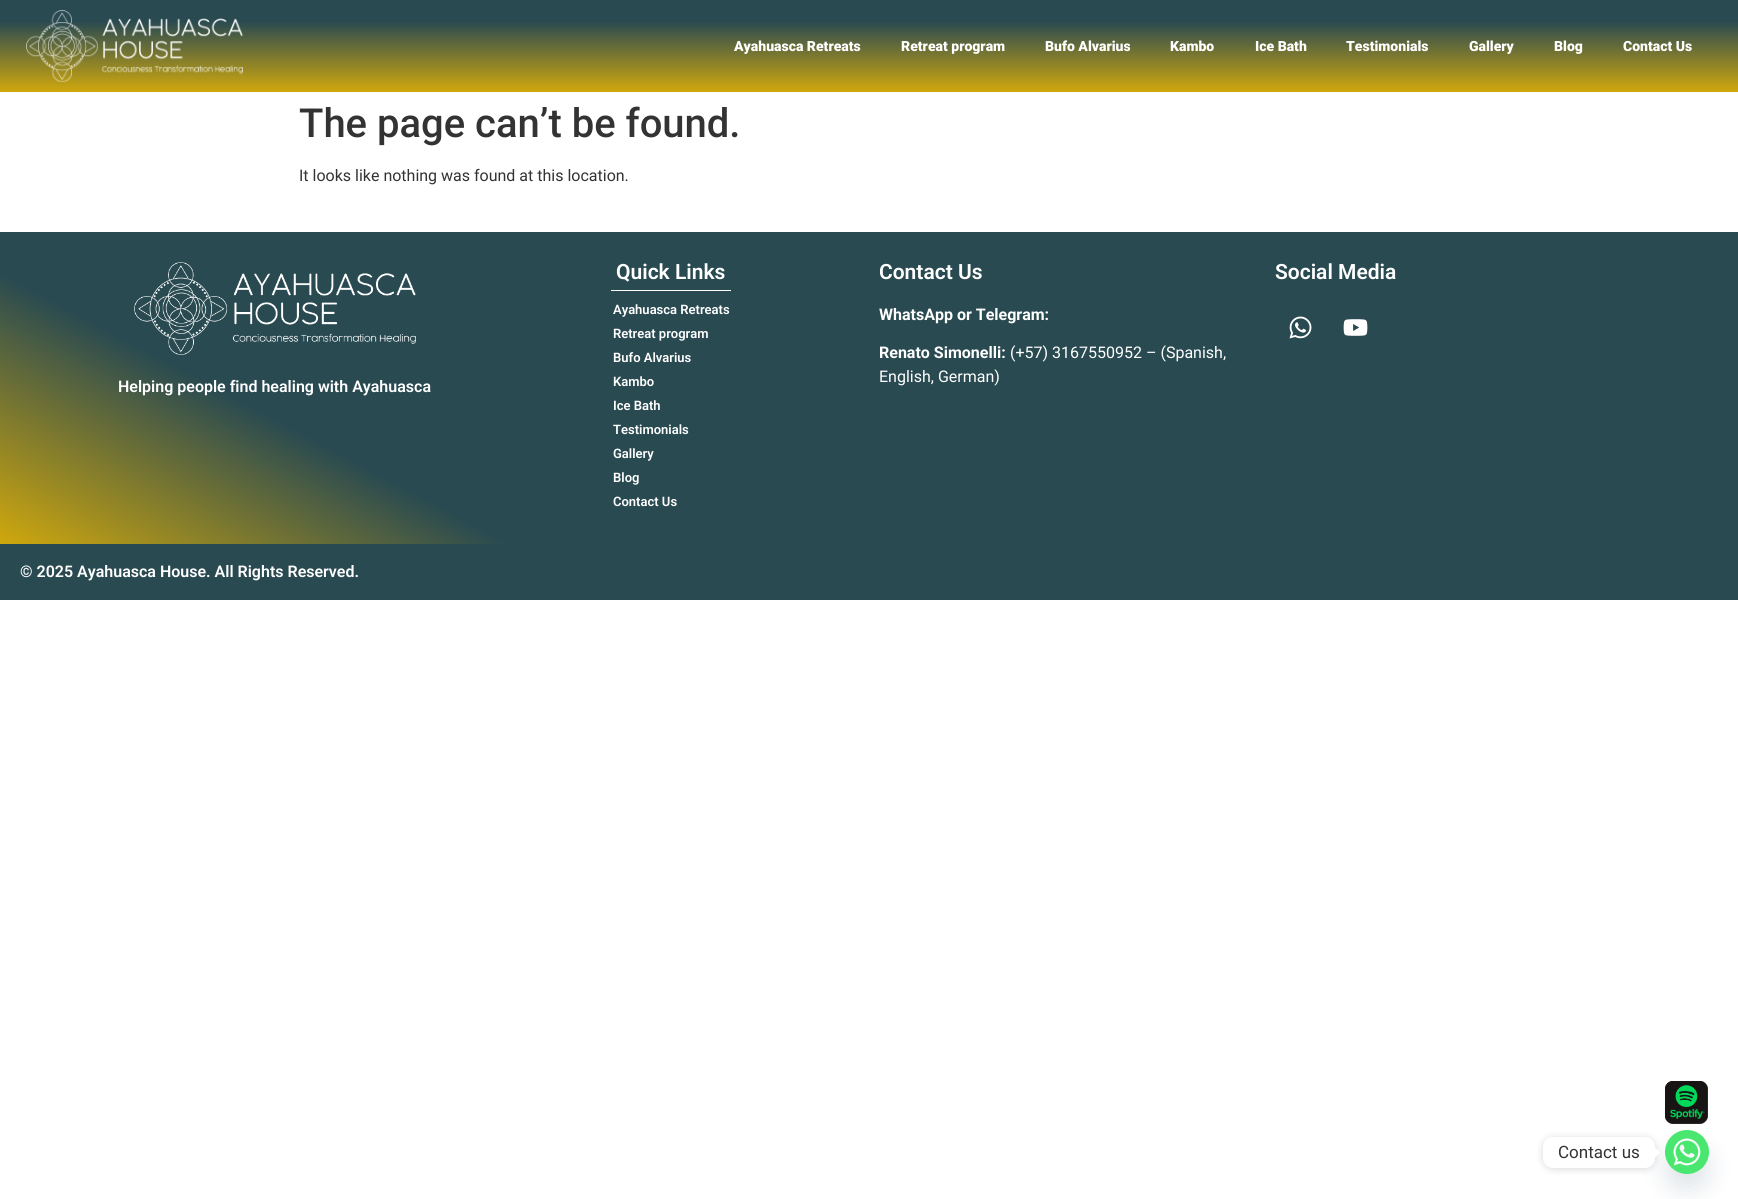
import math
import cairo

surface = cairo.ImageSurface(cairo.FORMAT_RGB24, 1738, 1199)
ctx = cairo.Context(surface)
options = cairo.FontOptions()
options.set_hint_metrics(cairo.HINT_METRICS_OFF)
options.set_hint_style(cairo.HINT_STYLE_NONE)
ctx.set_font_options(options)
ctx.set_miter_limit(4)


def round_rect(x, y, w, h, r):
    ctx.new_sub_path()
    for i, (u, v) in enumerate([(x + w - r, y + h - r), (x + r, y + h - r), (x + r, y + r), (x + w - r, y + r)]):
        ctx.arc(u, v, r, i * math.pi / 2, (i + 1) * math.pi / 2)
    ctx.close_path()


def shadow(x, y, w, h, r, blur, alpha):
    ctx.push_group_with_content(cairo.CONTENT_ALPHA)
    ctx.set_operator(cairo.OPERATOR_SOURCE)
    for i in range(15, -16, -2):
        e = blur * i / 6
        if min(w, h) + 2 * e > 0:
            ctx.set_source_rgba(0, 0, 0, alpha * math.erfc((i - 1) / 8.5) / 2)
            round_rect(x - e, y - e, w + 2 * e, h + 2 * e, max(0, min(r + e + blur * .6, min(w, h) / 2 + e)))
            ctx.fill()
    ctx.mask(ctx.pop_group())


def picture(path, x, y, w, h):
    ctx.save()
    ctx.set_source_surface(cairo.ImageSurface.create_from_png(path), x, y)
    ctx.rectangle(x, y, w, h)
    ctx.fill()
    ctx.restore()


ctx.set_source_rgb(1, 1, 1)
ctx.paint()
gradient = cairo.LinearGradient(869, 0, 869, 92)
gradient.add_color_stop_rgba(0.23, 0.161, 0.29, 0.318, 1)
gradient.add_color_stop_rgba(1, 0.816, 0.659, 0.051, 1)
ctx.set_source(gradient)
ctx.rectangle(0, 0, 1738, 92)
ctx.fill()
picture("img1.png", 26, 10, 217, 72)
ctx.select_font_face("Roboto Black")
ctx.set_font_size(14)
ctx.set_source_rgb(1, 1, 1)
ctx.move_to(734, 51)
ctx.show_text("Ayahuasca Retreats")
ctx.move_to(901, 51)
ctx.show_text("Retreat program")
ctx.move_to(1045, 51)
ctx.show_text("Bufo Alvarius")
ctx.move_to(1170, 51)
ctx.show_text("Kambo")
ctx.move_to(1255, 51)
ctx.show_text("Ice Bath")
ctx.move_to(1346, 51)
ctx.show_text("Testimonials")
ctx.move_to(1469, 51)
ctx.show_text("Gallery")
ctx.move_to(1554, 51)
ctx.show_text("Blog")
ctx.move_to(1623, 51)
ctx.show_text("Contact Us")
ctx.select_font_face("Roboto Medium")
ctx.set_font_size(40)
ctx.set_source_rgb(0.2, 0.2, 0.2)
ctx.move_to(299, 137)
ctx.show_text("The page can’t be found.")
ctx.select_font_face("Roboto")
ctx.set_font_size(16)
ctx.move_to(299, 181)
ctx.show_text("It looks like nothing was found at this location.")
gradient = cairo.LinearGradient(1125, -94, 613, 870)
gradient.add_color_stop_rgba(0.78, 0.161, 0.29, 0.318, 1)
gradient.add_color_stop_rgba(1, 0.816, 0.659, 0.051, 1)
ctx.set_source(gradient)
ctx.rectangle(0, 232, 1738, 312)
ctx.fill()
ctx.select_font_face("Roboto SemiBold")
ctx.set_font_size(21)
ctx.set_source_rgb(1, 1, 1)
ctx.move_to(616, 279)
ctx.show_text("Quick Links")
ctx.rectangle(611, 290, 120, 1)
ctx.fill()
ctx.set_font_size(13)
ctx.move_to(613, 314)
ctx.show_text("Ayahuasca Retreats")
ctx.move_to(613, 338)
ctx.show_text("Retreat program")
ctx.move_to(613, 362)
ctx.show_text("Bufo Alvarius")
ctx.move_to(613, 386)
ctx.show_text("Kambo")
ctx.move_to(613, 410)
ctx.show_text("Ice Bath")
ctx.move_to(613, 434)
ctx.show_text("Testimonials")
ctx.move_to(613, 458)
ctx.show_text("Gallery")
ctx.move_to(613, 482)
ctx.show_text("Blog")
ctx.move_to(613, 506)
ctx.show_text("Contact Us")
ctx.set_font_size(21)
ctx.move_to(879, 279)
ctx.show_text("Contact Us")
ctx.select_font_face("Roboto", cairo.FONT_SLANT_NORMAL, cairo.FONT_WEIGHT_BOLD)
ctx.set_font_size(16)
ctx.move_to(879, 320)
ctx.show_text("WhatsApp or Telegram:")
ctx.move_to(879, 358)
ctx.show_text("Renato Simonelli:")
ctx.select_font_face("Roboto")
ctx.move_to(1010, 358)
ctx.show_text("(+57) 3167550952 – (Spanish,")
ctx.move_to(879, 382)
ctx.show_text("English, German)")
ctx.select_font_face("Roboto SemiBold")
ctx.set_font_size(21)
ctx.move_to(1275, 279)
ctx.show_text("Social Media")
picture("img2.png", 1289, 316, 23, 23)
picture("img3.png", 1343, 319, 25, 17)
picture("img4.png", 134, 262, 282, 93)
ctx.set_font_size(16)
ctx.move_to(118, 392)
ctx.show_text("Helping people find healing with Ayahuasca")
ctx.set_source_rgb(0.161, 0.29, 0.318)
ctx.rectangle(0, 544, 1738, 56)
ctx.fill()
ctx.set_source_rgb(1, 1, 1)
ctx.move_to(20, 577)
ctx.show_text("© 2025 Ayahuasca House. All Rights Reserved.")
picture("img5.png", 1665, 1081, 43, 43)
ctx.set_source_rgb(0.286, 0.408, 0.494)
shadow(1665, 1146, 44, 44, 22, 12, 0.16)
picture("img6.png", 1665, 1130, 44, 44)
ctx.set_source_rgb(0, 0, 0)
shadow(1543, 1138, 112, 31, 10, 4, 0.15)
ctx.set_source_rgb(1, 1, 1)
round_rect(1543, 1137, 112, 31, 10)
ctx.fill()
ctx.select_font_face("Roboto")
ctx.set_font_size(17)
ctx.set_source_rgb(0.2, 0.2, 0.2)
ctx.move_to(1558, 1158)
ctx.show_text("Contact us")
ctx.set_source_rgb(1, 1, 1)
ctx.new_path()
ctx.move_to(1655, 1157.5)
ctx.line_to(1655, 1147.5)
ctx.line_to(1660, 1152.5)
ctx.close_path()
ctx.fill()
surface.write_to_png("page.png")
